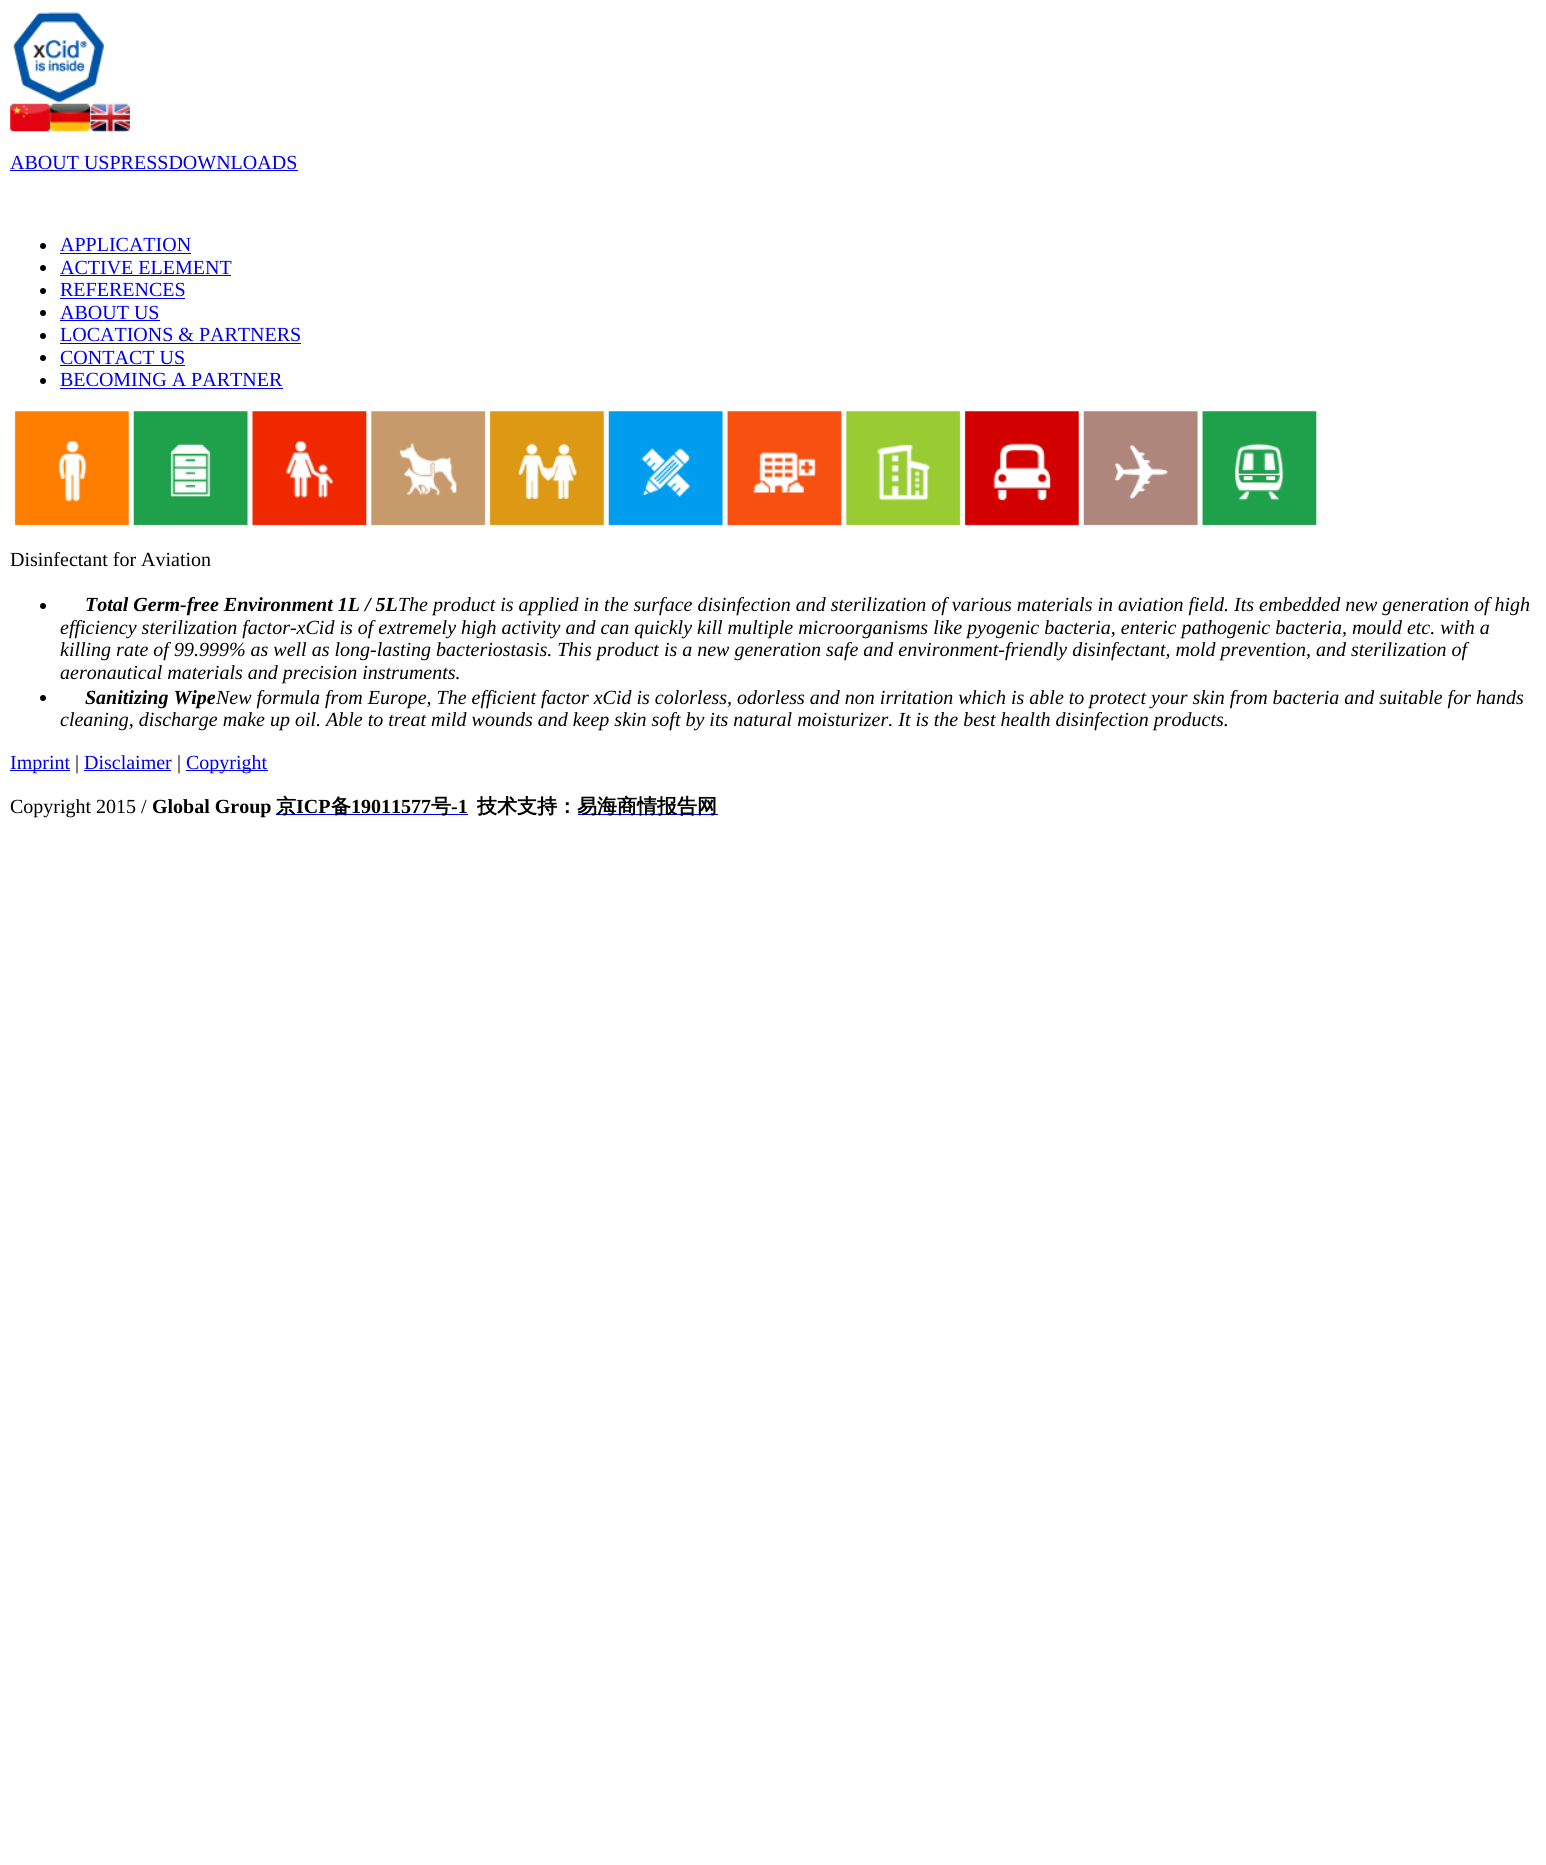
import math
import cairo

surface = cairo.ImageSurface(cairo.FORMAT_RGB24, 1546, 1865)
ctx = cairo.Context(surface)
options = cairo.FontOptions()
options.set_hint_metrics(cairo.HINT_METRICS_OFF)
options.set_hint_style(cairo.HINT_STYLE_NONE)
ctx.set_font_options(options)
ctx.set_miter_limit(4)


def picture(path, x, y, w, h):
    ctx.save()
    ctx.set_source_surface(cairo.ImageSurface.create_from_png(path), x, y)
    ctx.rectangle(x, y, w, h)
    ctx.fill()
    ctx.restore()


ctx.set_source_rgb(1, 1, 1)
ctx.paint()
picture("img1.png", 13, 12, 91, 91)
picture("img2.png", 10, 103, 40, 29)
picture("img3.png", 50, 103, 40, 29)
picture("img4.png", 90, 103, 40, 29)
ctx.select_font_face("Liberation Serif")
ctx.set_font_size(20)
ctx.set_source_rgb(0, 0, 0.933)
ctx.move_to(10, 169)
ctx.show_text("ABOUT USPRESSDOWNLOADS")
ctx.rectangle(10, 170, 288, 1)
ctx.fill()
ctx.set_source_rgb(0, 0, 0)
ctx.arc(43, 246, 3, 0, 2 * math.pi)
ctx.fill()
ctx.set_source_rgb(0, 0, 0.933)
ctx.move_to(60, 251)
ctx.show_text("APPLICATION")
ctx.rectangle(60, 253, 131, 1)
ctx.fill()
ctx.set_source_rgb(0, 0, 0)
ctx.arc(43, 268, 3, 0, 2 * math.pi)
ctx.fill()
ctx.set_source_rgb(0, 0, 0.933)
ctx.move_to(60, 274)
ctx.show_text("ACTIVE ELEMENT")
ctx.rectangle(60, 275, 171, 1)
ctx.fill()
ctx.set_source_rgb(0, 0, 0)
ctx.arc(43, 291, 3, 0, 2 * math.pi)
ctx.fill()
ctx.set_source_rgb(0, 0, 0.933)
ctx.move_to(60, 296)
ctx.show_text("REFERENCES")
ctx.rectangle(60, 298, 125, 1)
ctx.fill()
ctx.set_source_rgb(0, 0, 0)
ctx.arc(43, 313, 3, 0, 2 * math.pi)
ctx.fill()
ctx.set_source_rgb(0, 0, 0.933)
ctx.move_to(60, 319)
ctx.show_text("ABOUT US")
ctx.rectangle(60, 320, 100, 1)
ctx.fill()
ctx.set_source_rgb(0, 0, 0)
ctx.arc(43, 336, 3, 0, 2 * math.pi)
ctx.fill()
ctx.set_source_rgb(0, 0, 0.933)
ctx.move_to(60, 341)
ctx.show_text("LOCATIONS & PARTNERS")
ctx.rectangle(60, 343, 241, 1)
ctx.fill()
ctx.set_source_rgb(0, 0, 0)
ctx.arc(43, 358, 3, 0, 2 * math.pi)
ctx.fill()
ctx.set_source_rgb(0, 0, 0.933)
ctx.move_to(60, 364)
ctx.show_text("CONTACT US")
ctx.rectangle(60, 365, 125, 1)
ctx.fill()
ctx.set_source_rgb(0, 0, 0)
ctx.arc(43, 381, 3, 0, 2 * math.pi)
ctx.fill()
ctx.set_source_rgb(0, 0, 0.933)
ctx.move_to(60, 386)
ctx.show_text("BECOMING A PARTNER")
ctx.rectangle(60, 388, 223, 1)
ctx.fill()
picture("img5.png", 14, 411, 1303, 115)
ctx.set_source_rgb(0, 0, 0)
ctx.move_to(10, 566)
ctx.show_text("Disinfectant for Aviation")
ctx.new_path()
ctx.arc(43, 606, 3, 0, 2 * math.pi)
ctx.fill()
ctx.select_font_face("Liberation Serif", cairo.FONT_SLANT_ITALIC, cairo.FONT_WEIGHT_BOLD)
ctx.move_to(85, 611)
ctx.show_text("Total Germ-free Environment 1L / 5L")
ctx.select_font_face("Liberation Serif", cairo.FONT_SLANT_ITALIC)
ctx.move_to(398, 611)
ctx.show_text("The product is applied in the surface disinfection and sterilization of various materials in aviation field. Its embedded new generation of high")
ctx.move_to(60, 634)
ctx.show_text("efficiency sterilization factor-xCid is of extremely high activity and can quickly kill multiple microorganisms like pyogenic bacteria, enteric pathogenic bacteria, mould etc. with a")
ctx.move_to(60, 656)
ctx.show_text("killing rate of 99.999% as well as long-lasting bacteriostasis. This product is a new generation safe and environment-friendly disinfectant, mold prevention, and sterilization of")
ctx.move_to(60, 679)
ctx.show_text("aeronautical materials and precision instruments.")
ctx.new_path()
ctx.arc(43, 698, 3, 0, 2 * math.pi)
ctx.fill()
ctx.select_font_face("Liberation Serif", cairo.FONT_SLANT_ITALIC, cairo.FONT_WEIGHT_BOLD)
ctx.move_to(85, 704)
ctx.show_text("Sanitizing Wipe")
ctx.select_font_face("Liberation Serif", cairo.FONT_SLANT_ITALIC)
ctx.move_to(216, 704)
ctx.show_text("New formula from Europe, The efficient factor xCid is colorless, odorless and non irritation which is able to protect your skin from bacteria and suitable for hands")
ctx.move_to(60, 726)
ctx.show_text("cleaning, discharge make up oil. Able to treat mild wounds and keep skin soft by its natural moisturizer. It is the best health disinfection products.")
ctx.set_source_rgb(0, 0, 0.933)
ctx.rectangle(10, 770, 60, 1)
ctx.fill()
ctx.select_font_face("Liberation Serif")
ctx.move_to(10, 769)
ctx.show_text("Imprint")
ctx.set_source_rgb(0, 0, 0)
ctx.move_to(75, 769)
ctx.show_text("|")
ctx.set_source_rgb(0, 0, 0.933)
ctx.move_to(84, 769)
ctx.show_text("Disclaimer")
ctx.rectangle(84, 770, 87, 1)
ctx.fill()
ctx.set_source_rgb(0, 0, 0)
ctx.move_to(177, 769)
ctx.show_text("|")
ctx.set_source_rgb(0, 0, 0.933)
ctx.rectangle(186, 770, 82, 1)
ctx.fill()
ctx.move_to(186, 769)
ctx.show_text("Copyright")
ctx.set_source_rgb(0, 0, 0)
ctx.move_to(10, 813)
ctx.show_text("Copyright 2015 /")
ctx.select_font_face("Liberation Serif", cairo.FONT_SLANT_NORMAL, cairo.FONT_WEIGHT_BOLD)
ctx.move_to(152, 813)
ctx.show_text("Global Group")
ctx.set_source_rgb(0, 0, 0.933)
ctx.rectangle(276, 814, 192, 1)
ctx.fill()
ctx.select_font_face("WenQuanYi Zen Hei", cairo.FONT_SLANT_NORMAL, cairo.FONT_WEIGHT_BOLD)
ctx.set_source_rgb(0, 0, 0)
ctx.move_to(276, 813)
ctx.show_text("京")
ctx.select_font_face("Liberation Serif", cairo.FONT_SLANT_NORMAL, cairo.FONT_WEIGHT_BOLD)
ctx.move_to(296, 813)
ctx.show_text("ICP")
ctx.select_font_face("WenQuanYi Zen Hei", cairo.FONT_SLANT_NORMAL, cairo.FONT_WEIGHT_BOLD)
ctx.move_to(331, 813)
ctx.show_text("备")
ctx.select_font_face("Liberation Serif", cairo.FONT_SLANT_NORMAL, cairo.FONT_WEIGHT_BOLD)
ctx.move_to(351, 813)
ctx.show_text("19011577")
ctx.select_font_face("WenQuanYi Zen Hei", cairo.FONT_SLANT_NORMAL, cairo.FONT_WEIGHT_BOLD)
ctx.move_to(431, 813)
ctx.show_text("号")
ctx.select_font_face("Liberation Serif", cairo.FONT_SLANT_NORMAL, cairo.FONT_WEIGHT_BOLD)
ctx.move_to(451, 813)
ctx.show_text("-1")
ctx.select_font_face("WenQuanYi Zen Hei", cairo.FONT_SLANT_NORMAL, cairo.FONT_WEIGHT_BOLD)
ctx.move_to(477, 813)
ctx.show_text("技术支持：")
ctx.set_source_rgb(0, 0, 0.933)
ctx.rectangle(578, 814, 140, 1)
ctx.fill()
ctx.set_source_rgb(0, 0, 0)
ctx.move_to(577, 813)
ctx.show_text("易海商情报告网")
surface.write_to_png("page.png")
